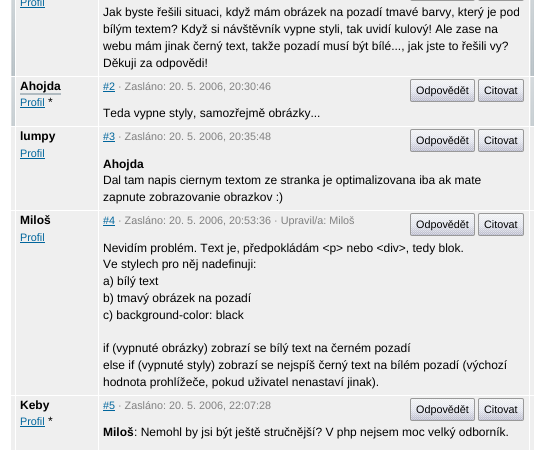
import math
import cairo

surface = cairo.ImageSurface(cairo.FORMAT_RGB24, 545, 450)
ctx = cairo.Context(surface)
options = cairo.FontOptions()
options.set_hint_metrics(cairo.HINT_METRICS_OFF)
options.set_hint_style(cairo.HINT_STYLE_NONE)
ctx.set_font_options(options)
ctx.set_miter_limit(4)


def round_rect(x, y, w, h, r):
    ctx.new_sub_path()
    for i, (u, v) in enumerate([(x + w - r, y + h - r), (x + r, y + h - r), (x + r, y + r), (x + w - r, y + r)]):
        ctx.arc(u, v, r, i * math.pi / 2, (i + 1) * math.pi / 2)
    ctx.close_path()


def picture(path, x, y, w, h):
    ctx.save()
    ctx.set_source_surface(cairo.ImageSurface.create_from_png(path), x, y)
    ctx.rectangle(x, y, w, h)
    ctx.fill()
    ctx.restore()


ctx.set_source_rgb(1, 1, 1)
ctx.paint()
ctx.set_source_rgb(0.937, 0.937, 0.937)
ctx.rectangle(16, 0, 513, 76)
ctx.fill()
picture("img1.png", 11, 0, 4, 76)
ctx.select_font_face("Liberation Sans")
ctx.set_font_size(10.8)
ctx.set_source_rgb(0, 0.396, 0.612)
ctx.move_to(20, 6)
ctx.show_text("Profil")
ctx.rectangle(20, 7, 25, 1)
ctx.fill()
round_rect(410.5, -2.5, 64, 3, 1.5)
ctx.set_source_rgb(0.6, 0.6, 0.6)
ctx.set_line_width(1)
ctx.stroke()
round_rect(478.5, -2.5, 45, 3, 1.5)
ctx.stroke()
ctx.set_font_size(12)
ctx.set_source_rgb(0, 0, 0)
ctx.move_to(103, 16)
ctx.show_text("Jak byste řešili situaci, když mám obrázek na pozadí tmavé barvy, který je pod")
ctx.move_to(103, 33)
ctx.show_text("bílým textem? Když si návštěvník vypne styli, tak uvidí kulový! Ale zase na")
ctx.move_to(103, 50)
ctx.show_text("webu mám jinak černý text, takže pozadí musí být bílé..., jak jste to řešili vy?")
ctx.move_to(103, 67)
ctx.show_text("Děkuji za odpovědi!")
picture("img1.png", 530, 0, 4, 76)
ctx.set_source_rgb(0.937, 0.937, 0.937)
ctx.rectangle(16, 77, 513, 49)
ctx.fill()
picture("img2.png", 11, 77, 4, 49)
ctx.select_font_face("Liberation Sans", cairo.FONT_SLANT_NORMAL, cairo.FONT_WEIGHT_BOLD)
ctx.set_source_rgb(0, 0, 0)
ctx.move_to(20, 90)
ctx.show_text("Ahojda")
ctx.set_source_rgb(0.694, 0.733, 0.757)
ctx.rectangle(20, 93, 41, 2)
ctx.fill()
ctx.select_font_face("Liberation Sans")
ctx.set_font_size(10.8)
ctx.set_source_rgb(0, 0.396, 0.612)
ctx.move_to(20, 106)
ctx.show_text("Profil")
ctx.rectangle(20, 107, 25, 1)
ctx.fill()
ctx.set_font_size(12)
ctx.set_source_rgb(0, 0, 0)
ctx.move_to(48, 106)
ctx.show_text("*")
ctx.set_font_size(10.8)
ctx.set_source_rgb(0, 0.396, 0.612)
ctx.move_to(103, 90)
ctx.show_text("#2")
ctx.rectangle(103, 91, 12, 1)
ctx.fill()
ctx.set_source_rgb(0.502, 0.502, 0.502)
ctx.move_to(118, 90)
ctx.show_text("· Zasláno: 20. 5. 2006, 20:30:46")
ctx.set_source_rgb(0.839, 0.859, 0.871)
round_rect(411, 80, 63, 21, 1)
ctx.fill()
picture("img3.png", 411, 80, 63, 21)
round_rect(410.5, 79.5, 64, 22, 1.5)
ctx.set_source_rgb(0.6, 0.6, 0.6)
ctx.stroke()
ctx.set_source_rgb(0, 0, 0)
ctx.move_to(416, 94)
ctx.show_text("Odpovědět")
ctx.set_source_rgb(0.839, 0.859, 0.871)
round_rect(479, 80, 44, 21, 1)
ctx.fill()
picture("img4.png", 479, 80, 44, 21)
round_rect(478.5, 79.5, 45, 22, 1.5)
ctx.set_source_rgb(0.6, 0.6, 0.6)
ctx.stroke()
ctx.set_source_rgb(0, 0, 0)
ctx.move_to(484, 94)
ctx.show_text("Citovat")
ctx.set_font_size(12)
ctx.move_to(103, 117)
ctx.show_text("Teda vypne styly, samozřejmě obrázky...")
picture("img2.png", 530, 77, 4, 49)
ctx.set_source_rgb(0.937, 0.937, 0.937)
ctx.rectangle(11, 127, 523, 83)
ctx.fill()
ctx.select_font_face("Liberation Sans", cairo.FONT_SLANT_NORMAL, cairo.FONT_WEIGHT_BOLD)
ctx.set_source_rgb(0, 0, 0)
ctx.move_to(20, 140)
ctx.show_text("lumpy")
ctx.select_font_face("Liberation Sans")
ctx.set_font_size(10.8)
ctx.set_source_rgb(0, 0.396, 0.612)
ctx.move_to(20, 157)
ctx.show_text("Profil")
ctx.rectangle(20, 158, 25, 1)
ctx.fill()
ctx.move_to(103, 140)
ctx.show_text("#3")
ctx.rectangle(103, 141, 12, 1)
ctx.fill()
ctx.set_source_rgb(0.502, 0.502, 0.502)
ctx.move_to(118, 140)
ctx.show_text("· Zasláno: 20. 5. 2006, 20:35:48")
ctx.set_source_rgb(0.839, 0.859, 0.871)
round_rect(411, 130, 63, 21, 1)
ctx.fill()
picture("img3.png", 411, 130, 63, 21)
round_rect(410.5, 129.5, 64, 22, 1.5)
ctx.set_source_rgb(0.6, 0.6, 0.6)
ctx.stroke()
ctx.set_source_rgb(0, 0, 0)
ctx.move_to(416, 144)
ctx.show_text("Odpovědět")
ctx.set_source_rgb(0.839, 0.859, 0.871)
round_rect(479, 130, 44, 21, 1)
ctx.fill()
picture("img4.png", 479, 130, 44, 21)
round_rect(478.5, 129.5, 45, 22, 1.5)
ctx.set_source_rgb(0.6, 0.6, 0.6)
ctx.stroke()
ctx.set_source_rgb(0, 0, 0)
ctx.move_to(484, 144)
ctx.show_text("Citovat")
ctx.select_font_face("Liberation Sans", cairo.FONT_SLANT_NORMAL, cairo.FONT_WEIGHT_BOLD)
ctx.set_font_size(12)
ctx.move_to(103, 168)
ctx.show_text("Ahojda")
ctx.select_font_face("Liberation Sans")
ctx.move_to(103, 184)
ctx.show_text("Dal tam napis ciernym textom ze stranka je optimalizovana iba ak mate")
ctx.move_to(103, 201)
ctx.show_text("zapnute zobrazovanie obrazkov :)")
ctx.set_source_rgb(0.937, 0.937, 0.937)
ctx.rectangle(11, 211, 523, 184)
ctx.fill()
ctx.select_font_face("Liberation Sans", cairo.FONT_SLANT_NORMAL, cairo.FONT_WEIGHT_BOLD)
ctx.set_source_rgb(0, 0, 0)
ctx.move_to(20, 224)
ctx.show_text("Miloš")
ctx.select_font_face("Liberation Sans")
ctx.set_font_size(10.8)
ctx.set_source_rgb(0, 0.396, 0.612)
ctx.move_to(20, 241)
ctx.show_text("Profil")
ctx.rectangle(20, 242, 25, 1)
ctx.fill()
ctx.move_to(103, 224)
ctx.show_text("#4")
ctx.rectangle(103, 225, 12, 1)
ctx.fill()
ctx.set_source_rgb(0.502, 0.502, 0.502)
ctx.move_to(118, 224)
ctx.show_text("· Zasláno: 20. 5. 2006, 20:53:36 · Upravil/a: Miloš")
ctx.set_source_rgb(0.839, 0.859, 0.871)
round_rect(411, 214, 63, 21, 1)
ctx.fill()
picture("img3.png", 411, 214, 63, 21)
round_rect(410.5, 213.5, 64, 22, 1.5)
ctx.set_source_rgb(0.6, 0.6, 0.6)
ctx.stroke()
ctx.set_source_rgb(0, 0, 0)
ctx.move_to(416, 228)
ctx.show_text("Odpovědět")
ctx.set_source_rgb(0.839, 0.859, 0.871)
round_rect(479, 214, 44, 21, 1)
ctx.fill()
picture("img4.png", 479, 214, 44, 21)
round_rect(478.5, 213.5, 45, 22, 1.5)
ctx.set_source_rgb(0.6, 0.6, 0.6)
ctx.stroke()
ctx.set_source_rgb(0, 0, 0)
ctx.move_to(484, 228)
ctx.show_text("Citovat")
ctx.set_font_size(12)
ctx.move_to(103, 252)
ctx.show_text("Nevidím problém. Text je, předpokládám <p> nebo <div>, tedy blok.")
ctx.move_to(103, 268)
ctx.show_text("Ve stylech pro něj nadefinuji:")
ctx.move_to(103, 285)
ctx.show_text("a) bílý text")
ctx.move_to(103, 302)
ctx.show_text("b) tmavý obrázek na pozadí")
ctx.move_to(103, 319)
ctx.show_text("c) background-color: black")
ctx.move_to(103, 352)
ctx.show_text("if (vypnuté obrázky) zobrazí se bílý text na černém pozadí")
ctx.move_to(103, 369)
ctx.show_text("else if (vypnuté styly) zobrazí se nejspíš černý text na bílém pozadí (výchozí")
ctx.move_to(103, 386)
ctx.show_text("hodnota prohlížeče, pokud uživatel nenastaví jinak).")
ctx.set_source_rgb(0.937, 0.937, 0.937)
ctx.rectangle(11, 396, 523, 54)
ctx.fill()
ctx.set_source_rgb(1, 1, 1)
ctx.rectangle(15, 126, 1, 324)
ctx.fill()
ctx.select_font_face("Liberation Sans", cairo.FONT_SLANT_NORMAL, cairo.FONT_WEIGHT_BOLD)
ctx.set_source_rgb(0, 0, 0)
ctx.move_to(20, 409)
ctx.show_text("Keby")
ctx.select_font_face("Liberation Sans")
ctx.set_font_size(10.8)
ctx.set_source_rgb(0, 0.396, 0.612)
ctx.move_to(20, 425)
ctx.show_text("Profil")
ctx.rectangle(20, 426, 25, 1)
ctx.fill()
ctx.set_font_size(12)
ctx.set_source_rgb(0, 0, 0)
ctx.move_to(48, 425)
ctx.show_text("*")
ctx.set_source_rgb(1, 1, 1)
ctx.rectangle(98, 0, 1, 450)
ctx.fill()
ctx.set_font_size(10.8)
ctx.set_source_rgb(0, 0.396, 0.612)
ctx.move_to(103, 409)
ctx.show_text("#5")
ctx.rectangle(103, 410, 12, 1)
ctx.fill()
ctx.set_source_rgb(0.502, 0.502, 0.502)
ctx.move_to(118, 409)
ctx.show_text("· Zasláno: 20. 5. 2006, 22:07:28")
ctx.set_source_rgb(0.839, 0.859, 0.871)
round_rect(411, 399, 63, 21, 1)
ctx.fill()
picture("img3.png", 411, 399, 63, 21)
round_rect(410.5, 398.5, 64, 22, 1.5)
ctx.set_source_rgb(0.6, 0.6, 0.6)
ctx.stroke()
ctx.set_source_rgb(0, 0, 0)
ctx.move_to(416, 413)
ctx.show_text("Odpovědět")
ctx.set_source_rgb(0.839, 0.859, 0.871)
round_rect(479, 399, 44, 21, 1)
ctx.fill()
picture("img4.png", 479, 399, 44, 21)
round_rect(478.5, 398.5, 45, 22, 1.5)
ctx.set_source_rgb(0.6, 0.6, 0.6)
ctx.stroke()
ctx.set_source_rgb(0, 0, 0)
ctx.move_to(484, 413)
ctx.show_text("Citovat")
ctx.select_font_face("Liberation Sans", cairo.FONT_SLANT_NORMAL, cairo.FONT_WEIGHT_BOLD)
ctx.set_font_size(12)
ctx.move_to(103, 436)
ctx.show_text("Miloš")
ctx.select_font_face("Liberation Sans")
ctx.move_to(134, 436)
ctx.show_text(": Nemohl by jsi být ještě stručnější? V php nejsem moc velký odborník.")
ctx.set_source_rgb(1, 1, 1)
ctx.rectangle(529, 126, 1, 324)
ctx.fill()
surface.write_to_png("page.png")
